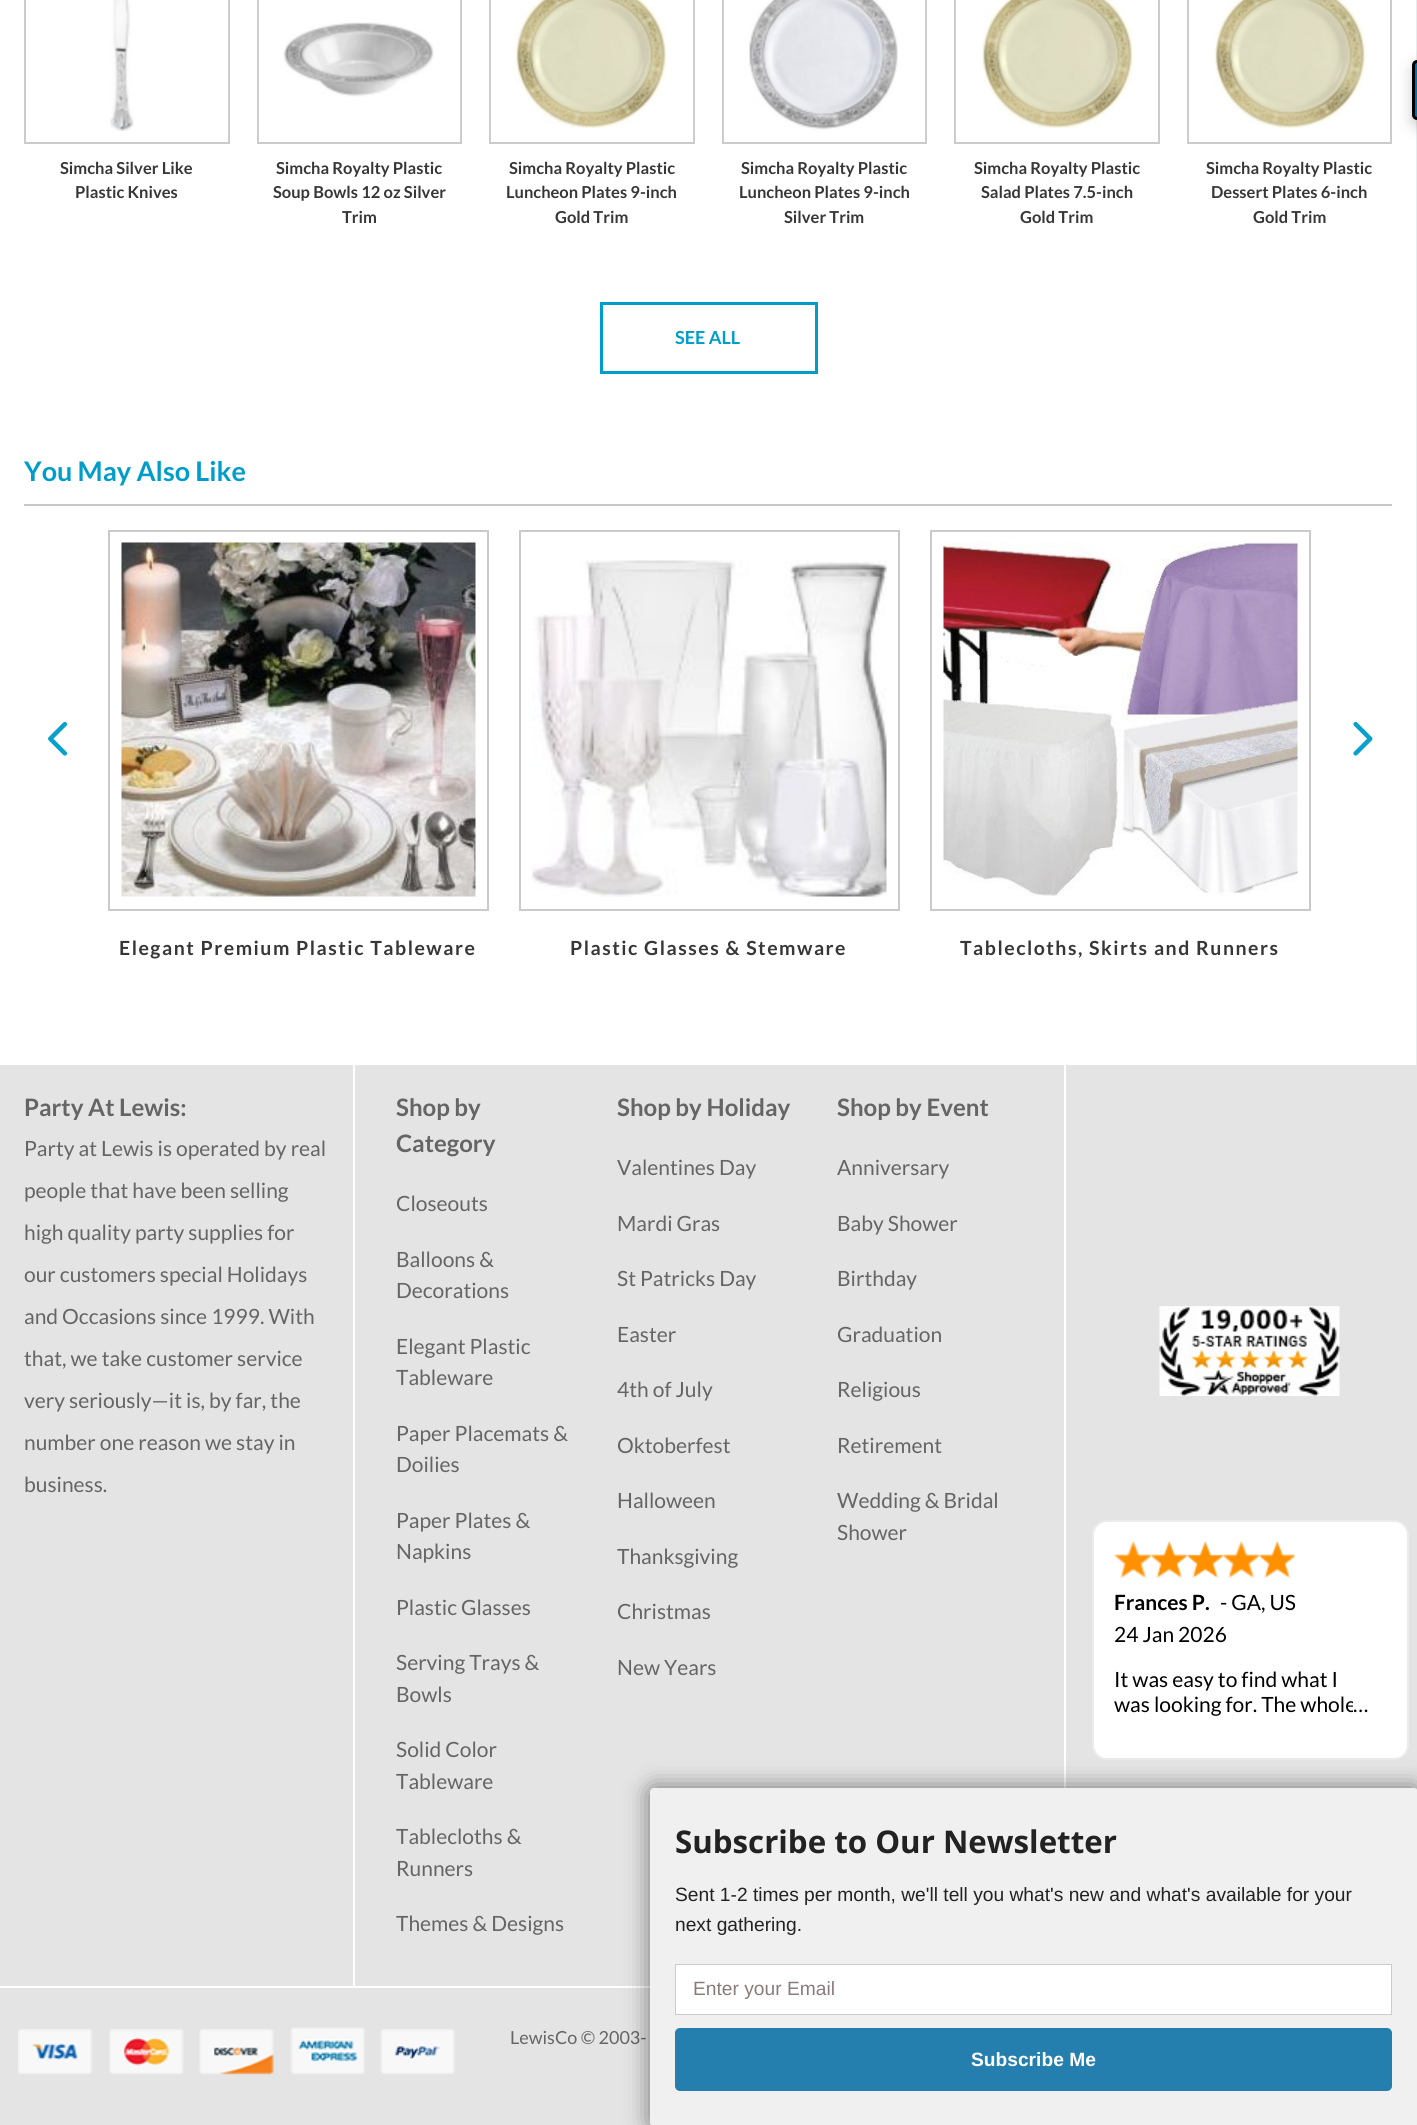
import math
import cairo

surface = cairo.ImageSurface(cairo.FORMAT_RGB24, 1417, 2125)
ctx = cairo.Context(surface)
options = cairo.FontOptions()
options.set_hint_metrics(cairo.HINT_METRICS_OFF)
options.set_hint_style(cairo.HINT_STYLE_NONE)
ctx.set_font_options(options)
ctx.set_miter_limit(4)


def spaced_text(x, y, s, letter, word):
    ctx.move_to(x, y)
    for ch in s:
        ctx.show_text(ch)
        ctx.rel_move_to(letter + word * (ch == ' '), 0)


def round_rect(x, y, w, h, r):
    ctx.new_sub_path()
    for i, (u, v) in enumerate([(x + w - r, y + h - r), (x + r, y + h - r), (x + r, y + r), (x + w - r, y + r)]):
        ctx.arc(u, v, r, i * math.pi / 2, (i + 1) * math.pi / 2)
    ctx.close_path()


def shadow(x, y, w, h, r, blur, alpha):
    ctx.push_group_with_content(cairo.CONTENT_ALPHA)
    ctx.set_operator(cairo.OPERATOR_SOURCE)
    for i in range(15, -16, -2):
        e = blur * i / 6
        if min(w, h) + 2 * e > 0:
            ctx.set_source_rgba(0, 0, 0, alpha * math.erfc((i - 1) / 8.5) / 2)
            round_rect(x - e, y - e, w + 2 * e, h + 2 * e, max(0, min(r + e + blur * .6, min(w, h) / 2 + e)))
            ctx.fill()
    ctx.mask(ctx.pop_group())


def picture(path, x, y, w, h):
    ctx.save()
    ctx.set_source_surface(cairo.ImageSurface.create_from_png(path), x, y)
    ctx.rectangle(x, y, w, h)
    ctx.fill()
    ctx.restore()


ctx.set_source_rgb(1, 1, 1)
ctx.paint()
ctx.set_source_rgb(0.914, 0.918, 0.929)
ctx.rectangle(1416, 0, 1, 1065)
ctx.fill()
ctx.rectangle(1188, -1, 203, 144)
ctx.set_source_rgb(0.8, 0.8, 0.8)
ctx.stroke()
ctx.set_source_rgb(0, 0, 0)
shadow(1412, 66, 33, 60, 5, 7.5, 0.2)
ctx.set_source_rgb(0, 0.451, 0.718)
ctx.new_path()
ctx.move_to(1417, 61.5)
ctx.line_to(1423.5, 61.5)
ctx.line_to(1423.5, 118.5)
ctx.line_to(1417, 118.5)
ctx.curve_to(1415, 118.5, 1413.5, 117, 1413.5, 115)
ctx.line_to(1413.5, 65)
ctx.curve_to(1413.5, 63, 1415, 61.5, 1417, 61.5)
ctx.close_path()
ctx.fill_preserve()
ctx.set_source_rgb(0, 0, 0)
ctx.set_line_width(3)
ctx.stroke()
ctx.rectangle(25, -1, 204, 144)
ctx.set_source_rgb(0.8, 0.8, 0.8)
ctx.set_line_width(2)
ctx.stroke()
picture("img1.png", 110, 0, 24, 131)
ctx.select_font_face("Lato", cairo.FONT_SLANT_NORMAL, cairo.FONT_WEIGHT_BOLD)
ctx.set_font_size(16.5)
ctx.set_source_rgb(0.216, 0.216, 0.216)
ctx.move_to(60, 174)
ctx.show_text("Simcha Silver Like")
ctx.move_to(75, 198)
ctx.show_text("Plastic Knives")
ctx.rectangle(258, -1, 203, 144)
ctx.set_source_rgb(0.8, 0.8, 0.8)
ctx.stroke()
picture("img2.png", 283, 22, 151, 75)
ctx.set_source_rgb(0.216, 0.216, 0.216)
ctx.move_to(276, 174)
ctx.show_text("Simcha Royalty Plastic")
ctx.move_to(273, 198)
ctx.show_text("Soup Bowls 12 oz Silver")
ctx.move_to(342, 223)
ctx.show_text("Trim")
ctx.rectangle(490, -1, 204, 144)
ctx.set_source_rgb(0.8, 0.8, 0.8)
ctx.stroke()
picture("img3.png", 515, 0, 152, 129)
ctx.set_source_rgb(0.216, 0.216, 0.216)
ctx.move_to(509, 174)
ctx.show_text("Simcha Royalty Plastic")
ctx.move_to(506, 198)
ctx.show_text("Luncheon Plates 9-inch")
ctx.move_to(555, 223)
ctx.show_text("Gold Trim")
ctx.rectangle(723, -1, 203, 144)
ctx.set_source_rgb(0.8, 0.8, 0.8)
ctx.stroke()
picture("img4.png", 749, 0, 149, 130)
ctx.set_source_rgb(0.216, 0.216, 0.216)
ctx.move_to(741, 174)
ctx.show_text("Simcha Royalty Plastic")
ctx.move_to(739, 198)
ctx.show_text("Luncheon Plates 9-inch")
ctx.move_to(784, 223)
ctx.show_text("Silver Trim")
ctx.rectangle(955, -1, 204, 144)
ctx.set_source_rgb(0.8, 0.8, 0.8)
ctx.stroke()
picture("img5.png", 982, 0, 151, 129)
ctx.set_source_rgb(0.216, 0.216, 0.216)
ctx.move_to(974, 174)
ctx.show_text("Simcha Royalty Plastic")
ctx.move_to(981, 198)
ctx.show_text("Salad Plates 7.5-inch")
ctx.move_to(1020, 223)
ctx.show_text("Gold Trim")
picture("img6.png", 1214, 0, 152, 129)
ctx.move_to(1206, 174)
ctx.show_text("Simcha Royalty Plastic")
ctx.move_to(1211, 198)
ctx.show_text("Dessert Plates 6-inch")
ctx.move_to(1253, 223)
ctx.show_text("Gold Trim")
ctx.rectangle(601.5, 303.5, 215, 69)
ctx.set_source_rgb(0, 0.616, 0.792)
ctx.set_line_width(3)
ctx.stroke()
ctx.set_font_size(18)
ctx.move_to(675, 344)
ctx.show_text("SEE ALL")
ctx.set_source_rgb(0.78, 0.78, 0.78)
ctx.rectangle(24, 504, 1368, 2)
ctx.fill()
ctx.set_font_size(27)
ctx.set_source_rgb(0, 0.616, 0.792)
ctx.move_to(24, 481)
ctx.show_text("You May Also Like")
picture("img7.png", 48, 721, 20, 35)
picture("img8.png", 1353, 721, 20, 35)
ctx.rectangle(109, 531, 379, 379)
ctx.set_source_rgb(0.792, 0.792, 0.792)
ctx.set_line_width(2)
ctx.stroke()
picture("img9.png", 121, 542, 355, 355)
ctx.set_font_size(19.5)
ctx.set_source_rgb(0.216, 0.216, 0.216)
spaced_text(119, 955, "Elegant Premium Plastic Tableware", 1.5, 0)
ctx.rectangle(520, 531, 379, 379)
ctx.set_source_rgb(0.792, 0.792, 0.792)
ctx.stroke()
picture("img10.png", 532, 560, 355, 337)
ctx.set_source_rgb(0.216, 0.216, 0.216)
spaced_text(570, 955, "Plastic Glasses & Stemware", 1.5, 0)
ctx.rectangle(931, 531, 379, 379)
ctx.set_source_rgb(0.792, 0.792, 0.792)
ctx.stroke()
picture("img11.png", 943, 542, 355, 354)
ctx.set_source_rgb(0.216, 0.216, 0.216)
spaced_text(960, 955, "Tablecloths, Skirts and Runners", 1.5, 0)
ctx.set_source_rgb(0.894, 0.894, 0.894)
ctx.rectangle(0, 1065, 1417, 921)
ctx.fill()
ctx.set_source_rgb(1, 1, 1)
ctx.rectangle(353, 1065, 2, 921)
ctx.fill()
ctx.set_font_size(24)
ctx.set_source_rgb(0.396, 0.396, 0.396)
ctx.move_to(24, 1116)
ctx.show_text("Party At Lewis:")
ctx.select_font_face("Lato")
ctx.set_font_size(21)
ctx.move_to(24, 1156)
ctx.show_text("Party at Lewis is operated by real")
ctx.move_to(24, 1198)
ctx.show_text("people that have been selling")
ctx.move_to(24, 1240)
ctx.show_text("high quality party supplies for")
ctx.move_to(24, 1282)
ctx.show_text("our customers special Holidays")
ctx.move_to(24, 1324)
ctx.show_text("and Occasions since 1999. With")
ctx.move_to(24, 1366)
ctx.show_text("that, we take customer service")
ctx.move_to(24, 1408)
ctx.show_text("very seriously—it is, by far, the")
ctx.move_to(24, 1450)
ctx.show_text("number one reason we stay in")
ctx.move_to(24, 1492)
ctx.show_text("business.")
ctx.select_font_face("Lato", cairo.FONT_SLANT_NORMAL, cairo.FONT_WEIGHT_BOLD)
ctx.set_font_size(24)
ctx.move_to(396, 1116)
ctx.show_text("Shop by")
ctx.move_to(396, 1152)
ctx.show_text("Category")
ctx.select_font_face("Lato")
ctx.set_font_size(21)
ctx.move_to(396, 1211)
ctx.show_text("Closeouts")
ctx.move_to(396, 1267)
ctx.show_text("Balloons &")
ctx.move_to(396, 1298)
ctx.show_text("Decorations")
ctx.move_to(396, 1354)
ctx.show_text("Elegant Plastic")
ctx.move_to(396, 1385)
ctx.show_text("Tableware")
ctx.move_to(396, 1441)
ctx.show_text("Paper Placemats &")
ctx.move_to(396, 1472)
ctx.show_text("Doilies")
ctx.move_to(396, 1528)
ctx.show_text("Paper Plates &")
ctx.move_to(396, 1559)
ctx.show_text("Napkins")
ctx.move_to(396, 1615)
ctx.show_text("Plastic Glasses")
ctx.move_to(396, 1670)
ctx.show_text("Serving Trays &")
ctx.move_to(396, 1702)
ctx.show_text("Bowls")
ctx.move_to(396, 1757)
ctx.show_text("Solid Color")
ctx.move_to(396, 1789)
ctx.show_text("Tableware")
ctx.move_to(396, 1844)
ctx.show_text("Tablecloths &")
ctx.move_to(396, 1876)
ctx.show_text("Runners")
ctx.move_to(396, 1931)
ctx.show_text("Themes & Designs")
ctx.select_font_face("Lato", cairo.FONT_SLANT_NORMAL, cairo.FONT_WEIGHT_BOLD)
ctx.set_font_size(24)
ctx.move_to(617, 1116)
ctx.show_text("Shop by Holiday")
ctx.select_font_face("Lato")
ctx.set_font_size(21)
ctx.move_to(617, 1175)
ctx.show_text("Valentines Day")
ctx.move_to(617, 1231)
ctx.show_text("Mardi Gras")
ctx.move_to(617, 1286)
ctx.show_text("St Patricks Day")
ctx.move_to(617, 1342)
ctx.show_text("Easter")
ctx.move_to(617, 1397)
ctx.show_text("4th of July")
ctx.move_to(617, 1453)
ctx.show_text("Oktoberfest")
ctx.move_to(617, 1508)
ctx.show_text("Halloween")
ctx.move_to(617, 1564)
ctx.show_text("Thanksgiving")
ctx.move_to(617, 1619)
ctx.show_text("Christmas")
ctx.move_to(617, 1675)
ctx.show_text("New Years")
ctx.select_font_face("Lato", cairo.FONT_SLANT_NORMAL, cairo.FONT_WEIGHT_BOLD)
ctx.set_font_size(24)
ctx.move_to(837, 1116)
ctx.show_text("Shop by Event")
ctx.select_font_face("Lato")
ctx.set_font_size(21)
ctx.move_to(837, 1175)
ctx.show_text("Anniversary")
ctx.move_to(837, 1231)
ctx.show_text("Baby Shower")
ctx.move_to(837, 1286)
ctx.show_text("Birthday")
ctx.move_to(837, 1342)
ctx.show_text("Graduation")
ctx.move_to(837, 1397)
ctx.show_text("Religious")
ctx.move_to(837, 1453)
ctx.show_text("Retirement")
ctx.move_to(837, 1508)
ctx.show_text("Wedding & Bridal")
ctx.move_to(837, 1540)
ctx.show_text("Shower")
ctx.set_source_rgb(1, 1, 1)
ctx.rectangle(1064, 1065, 2, 723)
ctx.fill()
picture("img12.png", 1159, 1306, 181, 90)
round_rect(1093, 1521, 315, 238, 14)
ctx.fill_preserve()
ctx.set_source_rgb(0.922, 0.922, 0.922)
ctx.stroke()
picture("img13.png", 1114, 1541, 37, 37)
picture("img14.png", 1150, 1541, 37, 37)
picture("img15.png", 1186, 1541, 37, 37)
picture("img16.png", 1222, 1541, 37, 37)
picture("img17.png", 1258, 1541, 37, 37)
ctx.select_font_face("Lato", cairo.FONT_SLANT_NORMAL, cairo.FONT_WEIGHT_BOLD)
ctx.set_source_rgb(0, 0, 0)
ctx.move_to(1114, 1610)
ctx.show_text("Frances P.")
ctx.select_font_face("Lato")
ctx.move_to(1220, 1610)
ctx.show_text("- GA, US")
ctx.move_to(1114, 1642)
ctx.show_text("24 Jan 2026")
ctx.move_to(1114, 1687)
ctx.show_text("It was easy to find what I")
ctx.move_to(1114, 1712)
ctx.show_text("was looking for. The whole")
ctx.set_source_rgb(1, 1, 1)
ctx.rectangle(1353, 1701, 3, 11)
ctx.fill()
ctx.set_source_rgb(0, 0, 0)
ctx.move_to(1353, 1712)
ctx.show_text("…")
ctx.set_source_rgb(0.894, 0.894, 0.894)
ctx.rectangle(0, 1988, 1417, 137)
ctx.fill()
picture("img18.png", 18, 2027, 437, 48)
ctx.set_font_size(18)
ctx.set_source_rgb(0.396, 0.396, 0.396)
ctx.move_to(510, 2044)
ctx.show_text("LewisCo © 2003-")
ctx.set_source_rgb(0, 0, 0)
shadow(650, 1788, 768, 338, 4, 12, 0.5)
ctx.set_source_rgb(0.941, 0.941, 0.941)
round_rect(650, 1788, 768, 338, 4)
ctx.fill()
ctx.select_font_face("Open Sans", cairo.FONT_SLANT_NORMAL, cairo.FONT_WEIGHT_BOLD)
ctx.set_font_size(31.25)
ctx.set_source_rgb(0.133, 0.133, 0.133)
ctx.move_to(675, 1853)
ctx.show_text("Subscribe to Our Newsletter")
ctx.select_font_face("Liberation Sans")
ctx.set_font_size(19.2)
ctx.move_to(675, 1901)
ctx.show_text("Sent 1-2 times per month, we'll tell you what's new and what's available for your")
ctx.move_to(675, 1931)
ctx.show_text("next gathering.")
ctx.set_source_rgb(1, 1, 1)
ctx.rectangle(675.5, 1964.5, 716, 50)
ctx.fill_preserve()
ctx.set_source_rgb(0.8, 0.8, 0.8)
ctx.set_line_width(1)
ctx.stroke()
ctx.set_source_rgb(0.541, 0.482, 0.482)
ctx.move_to(693, 1995)
ctx.show_text("Enter your Email")
ctx.set_source_rgb(0.141, 0.498, 0.682)
round_rect(675, 2028, 717, 63, 5)
ctx.fill()
ctx.select_font_face("Liberation Sans", cairo.FONT_SLANT_NORMAL, cairo.FONT_WEIGHT_BOLD)
ctx.set_source_rgb(1, 1, 1)
ctx.move_to(971, 2066)
ctx.show_text("Subscribe Me")
surface.write_to_png("page.png")
